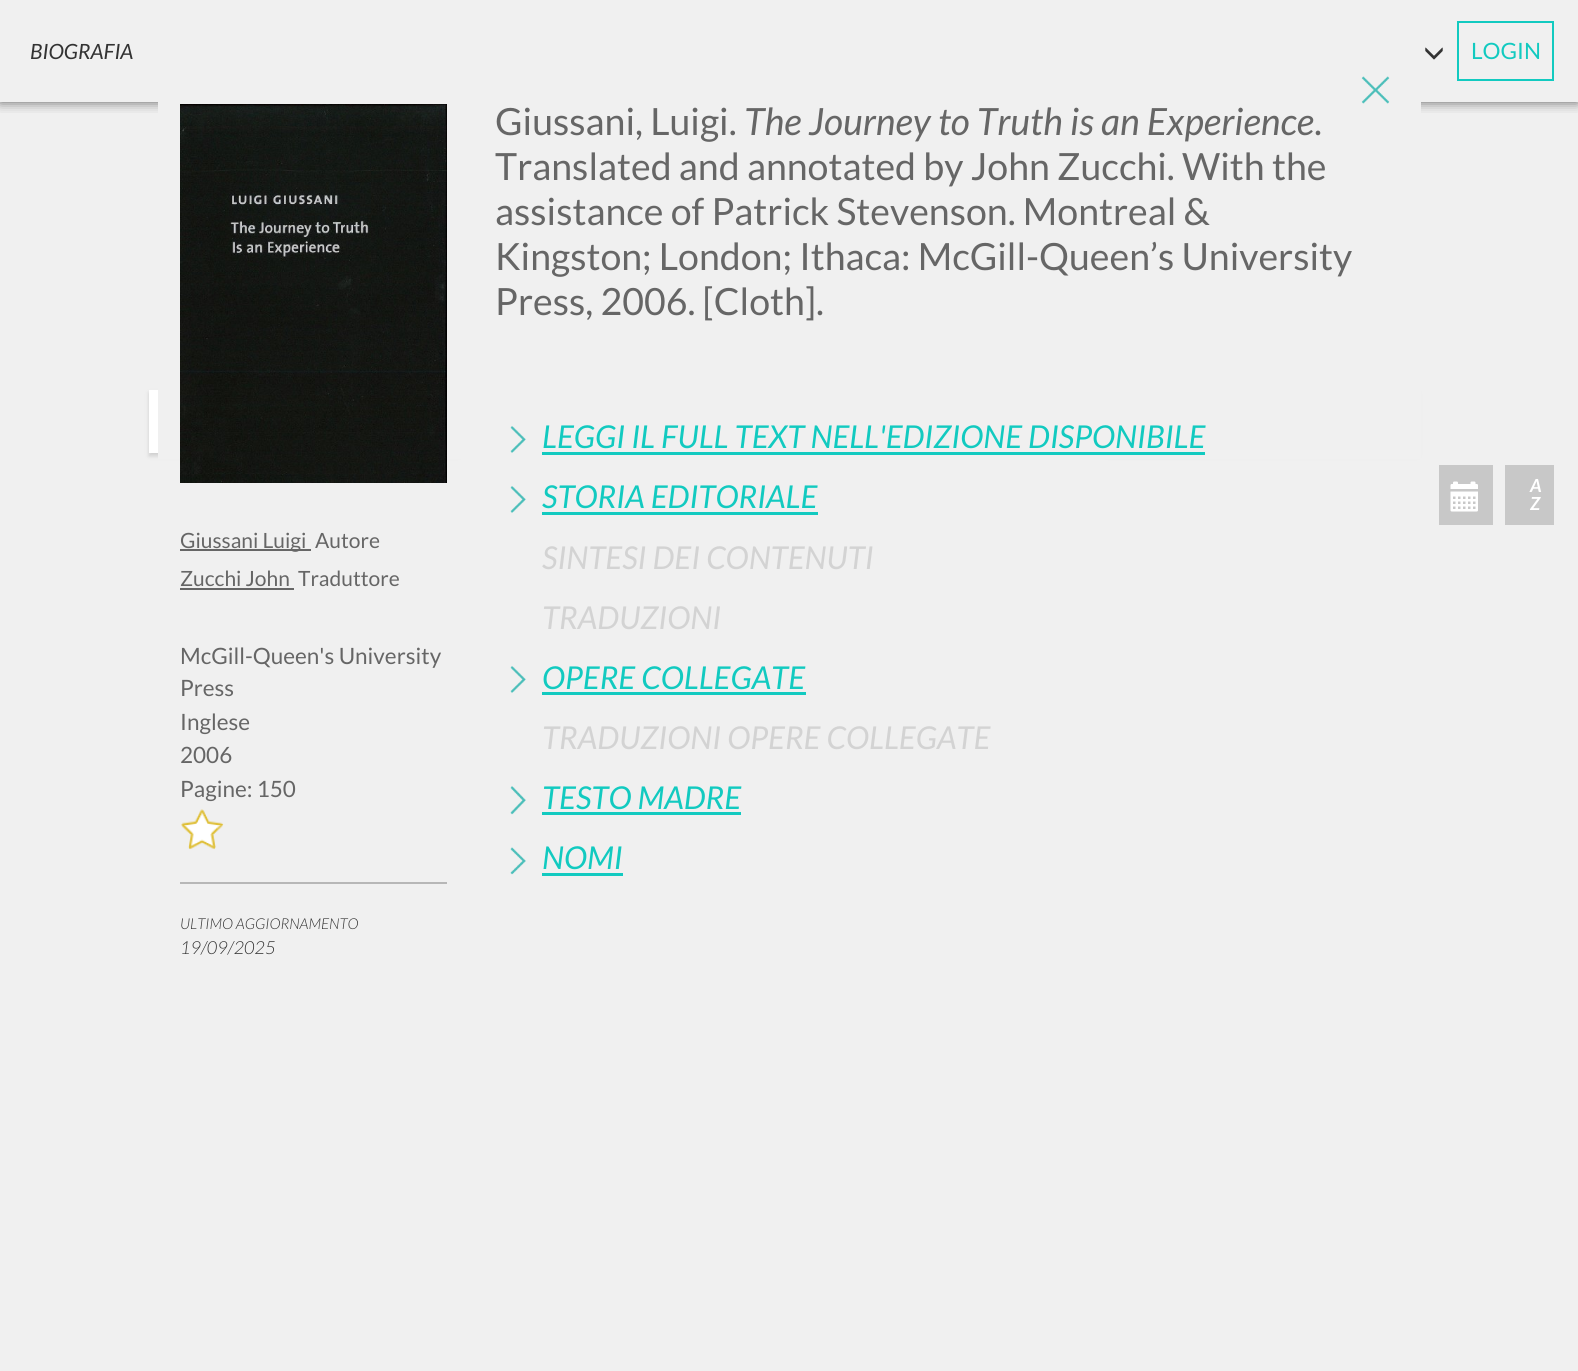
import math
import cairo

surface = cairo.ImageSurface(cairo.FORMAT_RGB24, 1578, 1371)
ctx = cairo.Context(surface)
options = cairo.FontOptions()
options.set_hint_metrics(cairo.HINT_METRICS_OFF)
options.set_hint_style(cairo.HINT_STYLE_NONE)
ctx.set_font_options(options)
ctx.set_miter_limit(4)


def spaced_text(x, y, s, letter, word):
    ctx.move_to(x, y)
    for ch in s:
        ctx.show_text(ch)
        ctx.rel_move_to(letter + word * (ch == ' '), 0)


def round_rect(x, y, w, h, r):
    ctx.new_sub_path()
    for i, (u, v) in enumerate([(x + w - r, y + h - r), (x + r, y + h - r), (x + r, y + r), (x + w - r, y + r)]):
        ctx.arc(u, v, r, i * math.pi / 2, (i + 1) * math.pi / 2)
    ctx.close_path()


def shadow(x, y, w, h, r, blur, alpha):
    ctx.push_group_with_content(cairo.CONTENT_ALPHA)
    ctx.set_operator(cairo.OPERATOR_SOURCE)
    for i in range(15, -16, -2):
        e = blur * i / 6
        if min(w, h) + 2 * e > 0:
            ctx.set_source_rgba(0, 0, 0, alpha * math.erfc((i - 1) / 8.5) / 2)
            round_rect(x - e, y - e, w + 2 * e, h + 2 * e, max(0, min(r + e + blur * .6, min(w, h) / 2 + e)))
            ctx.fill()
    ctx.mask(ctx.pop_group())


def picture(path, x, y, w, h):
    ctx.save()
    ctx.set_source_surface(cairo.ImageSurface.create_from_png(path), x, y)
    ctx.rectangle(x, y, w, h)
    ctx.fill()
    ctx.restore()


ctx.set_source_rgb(0.941, 0.941, 0.941)
ctx.paint()
ctx.save()
ctx.rectangle(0, 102, 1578, 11)
ctx.clip()
ctx.set_source_rgb(0, 0, 0)
shadow(0, 0, 1578, 102, 0, 6, 0.6)
ctx.restore()
ctx.select_font_face("Lato", cairo.FONT_SLANT_ITALIC)
ctx.set_font_size(21)
ctx.set_source_rgb(0.2, 0.2, 0.2)
ctx.move_to(30, 59)
ctx.show_text("BIOGRAFIA")
picture("img1.png", 1425, 47, 18, 13)
ctx.rectangle(1458, 22, 95, 58)
ctx.set_source_rgb(0.071, 0.792, 0.753)
ctx.stroke()
ctx.select_font_face("Lato")
ctx.set_font_size(22.5)
ctx.move_to(1471, 59)
ctx.show_text("LOGIN")
ctx.set_source_rgb(0.812, 0.812, 0.812)
shadow(149, 393, 310, 63, 0, 2, 1)
ctx.set_source_rgb(1, 1, 1)
ctx.rectangle(149, 390, 9, 63)
ctx.fill()
ctx.set_source_rgb(0.812, 0.812, 0.812)
shadow(1107, 393, 311, 63, 0, 2, 1)
ctx.set_source_rgb(0.784, 0.784, 0.784)
ctx.rectangle(1439, 465, 54, 60)
ctx.fill()
picture("img2.png", 1450, 481, 28, 31)
ctx.rectangle(1505, 465, 49, 60)
ctx.fill()
ctx.select_font_face("Lato", cairo.FONT_SLANT_ITALIC, cairo.FONT_WEIGHT_BOLD)
ctx.set_font_size(18)
ctx.set_source_rgb(1, 1, 1)
spaced_text(1530, 492, "A", 1, 0)
spaced_text(1530, 510, "Z", 1, 0)
ctx.set_source_rgb(0.941, 0.941, 0.941)
ctx.rectangle(158, 102, 1263, 357)
ctx.fill()
picture("img3.png", 1361, 76, 29, 28)
picture("img4.png", 180, 104, 267, 379)
ctx.set_source_rgb(0.4, 0.4, 0.4)
ctx.rectangle(180, 549, 131, 2)
ctx.fill()
ctx.select_font_face("Lato")
ctx.set_font_size(21)
ctx.move_to(180, 548)
ctx.show_text("Giussani Luigi")
ctx.move_to(315, 548)
ctx.show_text("Autore")
ctx.move_to(180, 586)
ctx.show_text("Zucchi John")
ctx.rectangle(180, 588, 114, 2)
ctx.fill()
ctx.move_to(298, 586)
ctx.show_text("Traduttore")
ctx.set_font_size(22.5)
ctx.move_to(180, 664)
ctx.show_text("McGill-Queen's University")
ctx.move_to(180, 696)
ctx.show_text("Press")
ctx.move_to(180, 730)
ctx.show_text("Inglese")
ctx.move_to(180, 763)
ctx.show_text("2006")
ctx.move_to(180, 797)
ctx.show_text("Pagine: 150")
picture("img5.png", 181, 809, 43, 41)
ctx.set_source_rgb(0.718, 0.718, 0.718)
ctx.rectangle(180, 882, 267, 2)
ctx.fill()
ctx.select_font_face("Lato Light", cairo.FONT_SLANT_ITALIC)
ctx.set_font_size(15)
ctx.set_source_rgb(0.2, 0.2, 0.2)
ctx.move_to(180, 929)
ctx.show_text("ULTIMO AGGIORNAMENTO")
ctx.set_font_size(18)
ctx.move_to(180, 954)
ctx.show_text("19/09/2025")
ctx.select_font_face("Lato")
ctx.set_font_size(37.5)
ctx.set_source_rgb(0.4, 0.4, 0.4)
ctx.move_to(495, 135)
ctx.show_text("Giussani, Luigi.")
ctx.select_font_face("Lato", cairo.FONT_SLANT_ITALIC)
ctx.move_to(744, 135)
ctx.show_text("The Journey to Truth is an Experience")
ctx.select_font_face("Lato")
ctx.move_to(1314, 135)
ctx.show_text(".")
ctx.move_to(495, 180)
ctx.show_text("Translated and annotated by John Zucchi. With the")
ctx.move_to(495, 225)
ctx.show_text("assistance of Patrick Stevenson. Montreal &")
ctx.move_to(495, 270)
ctx.show_text("Kingston; London; Ithaca: McGill-Queen’s University")
ctx.move_to(495, 315)
ctx.show_text("Press, 2006. [Cloth].")
picture("img6.png", 510, 426, 16, 27)
ctx.select_font_face("Lato", cairo.FONT_SLANT_ITALIC)
ctx.set_font_size(31.5)
ctx.set_source_rgb(0.071, 0.792, 0.753)
ctx.move_to(542, 448)
ctx.show_text("LEGGI IL FULL TEXT NELL'EDIZIONE DISPONIBILE")
ctx.rectangle(542, 452, 663, 3)
ctx.fill()
picture("img6.png", 510, 486, 16, 27)
ctx.move_to(542, 508)
ctx.show_text("STORIA EDITORIALE")
ctx.rectangle(542, 512, 276, 3)
ctx.fill()
ctx.set_source_rgb(0.827, 0.827, 0.827)
ctx.move_to(542, 569)
ctx.show_text("SINTESI DEI CONTENUTI")
ctx.move_to(542, 629)
ctx.show_text("TRADUZIONI")
picture("img6.png", 510, 666, 16, 27)
ctx.set_source_rgb(0.071, 0.792, 0.753)
ctx.move_to(542, 689)
ctx.show_text("OPERE COLLEGATE")
ctx.rectangle(542, 692, 264, 3)
ctx.fill()
ctx.set_source_rgb(0.827, 0.827, 0.827)
ctx.move_to(542, 749)
ctx.show_text("TRADUZIONI OPERE COLLEGATE")
picture("img7.png", 510, 786, 16, 29)
ctx.set_source_rgb(0.071, 0.792, 0.753)
ctx.move_to(542, 809)
ctx.show_text("TESTO MADRE")
ctx.rectangle(542, 812, 199, 3)
ctx.fill()
picture("img8.png", 510, 847, 16, 28)
ctx.move_to(542, 869)
ctx.show_text("NOMI")
ctx.rectangle(542, 873, 81, 3)
ctx.fill()
surface.write_to_png("page.png")
